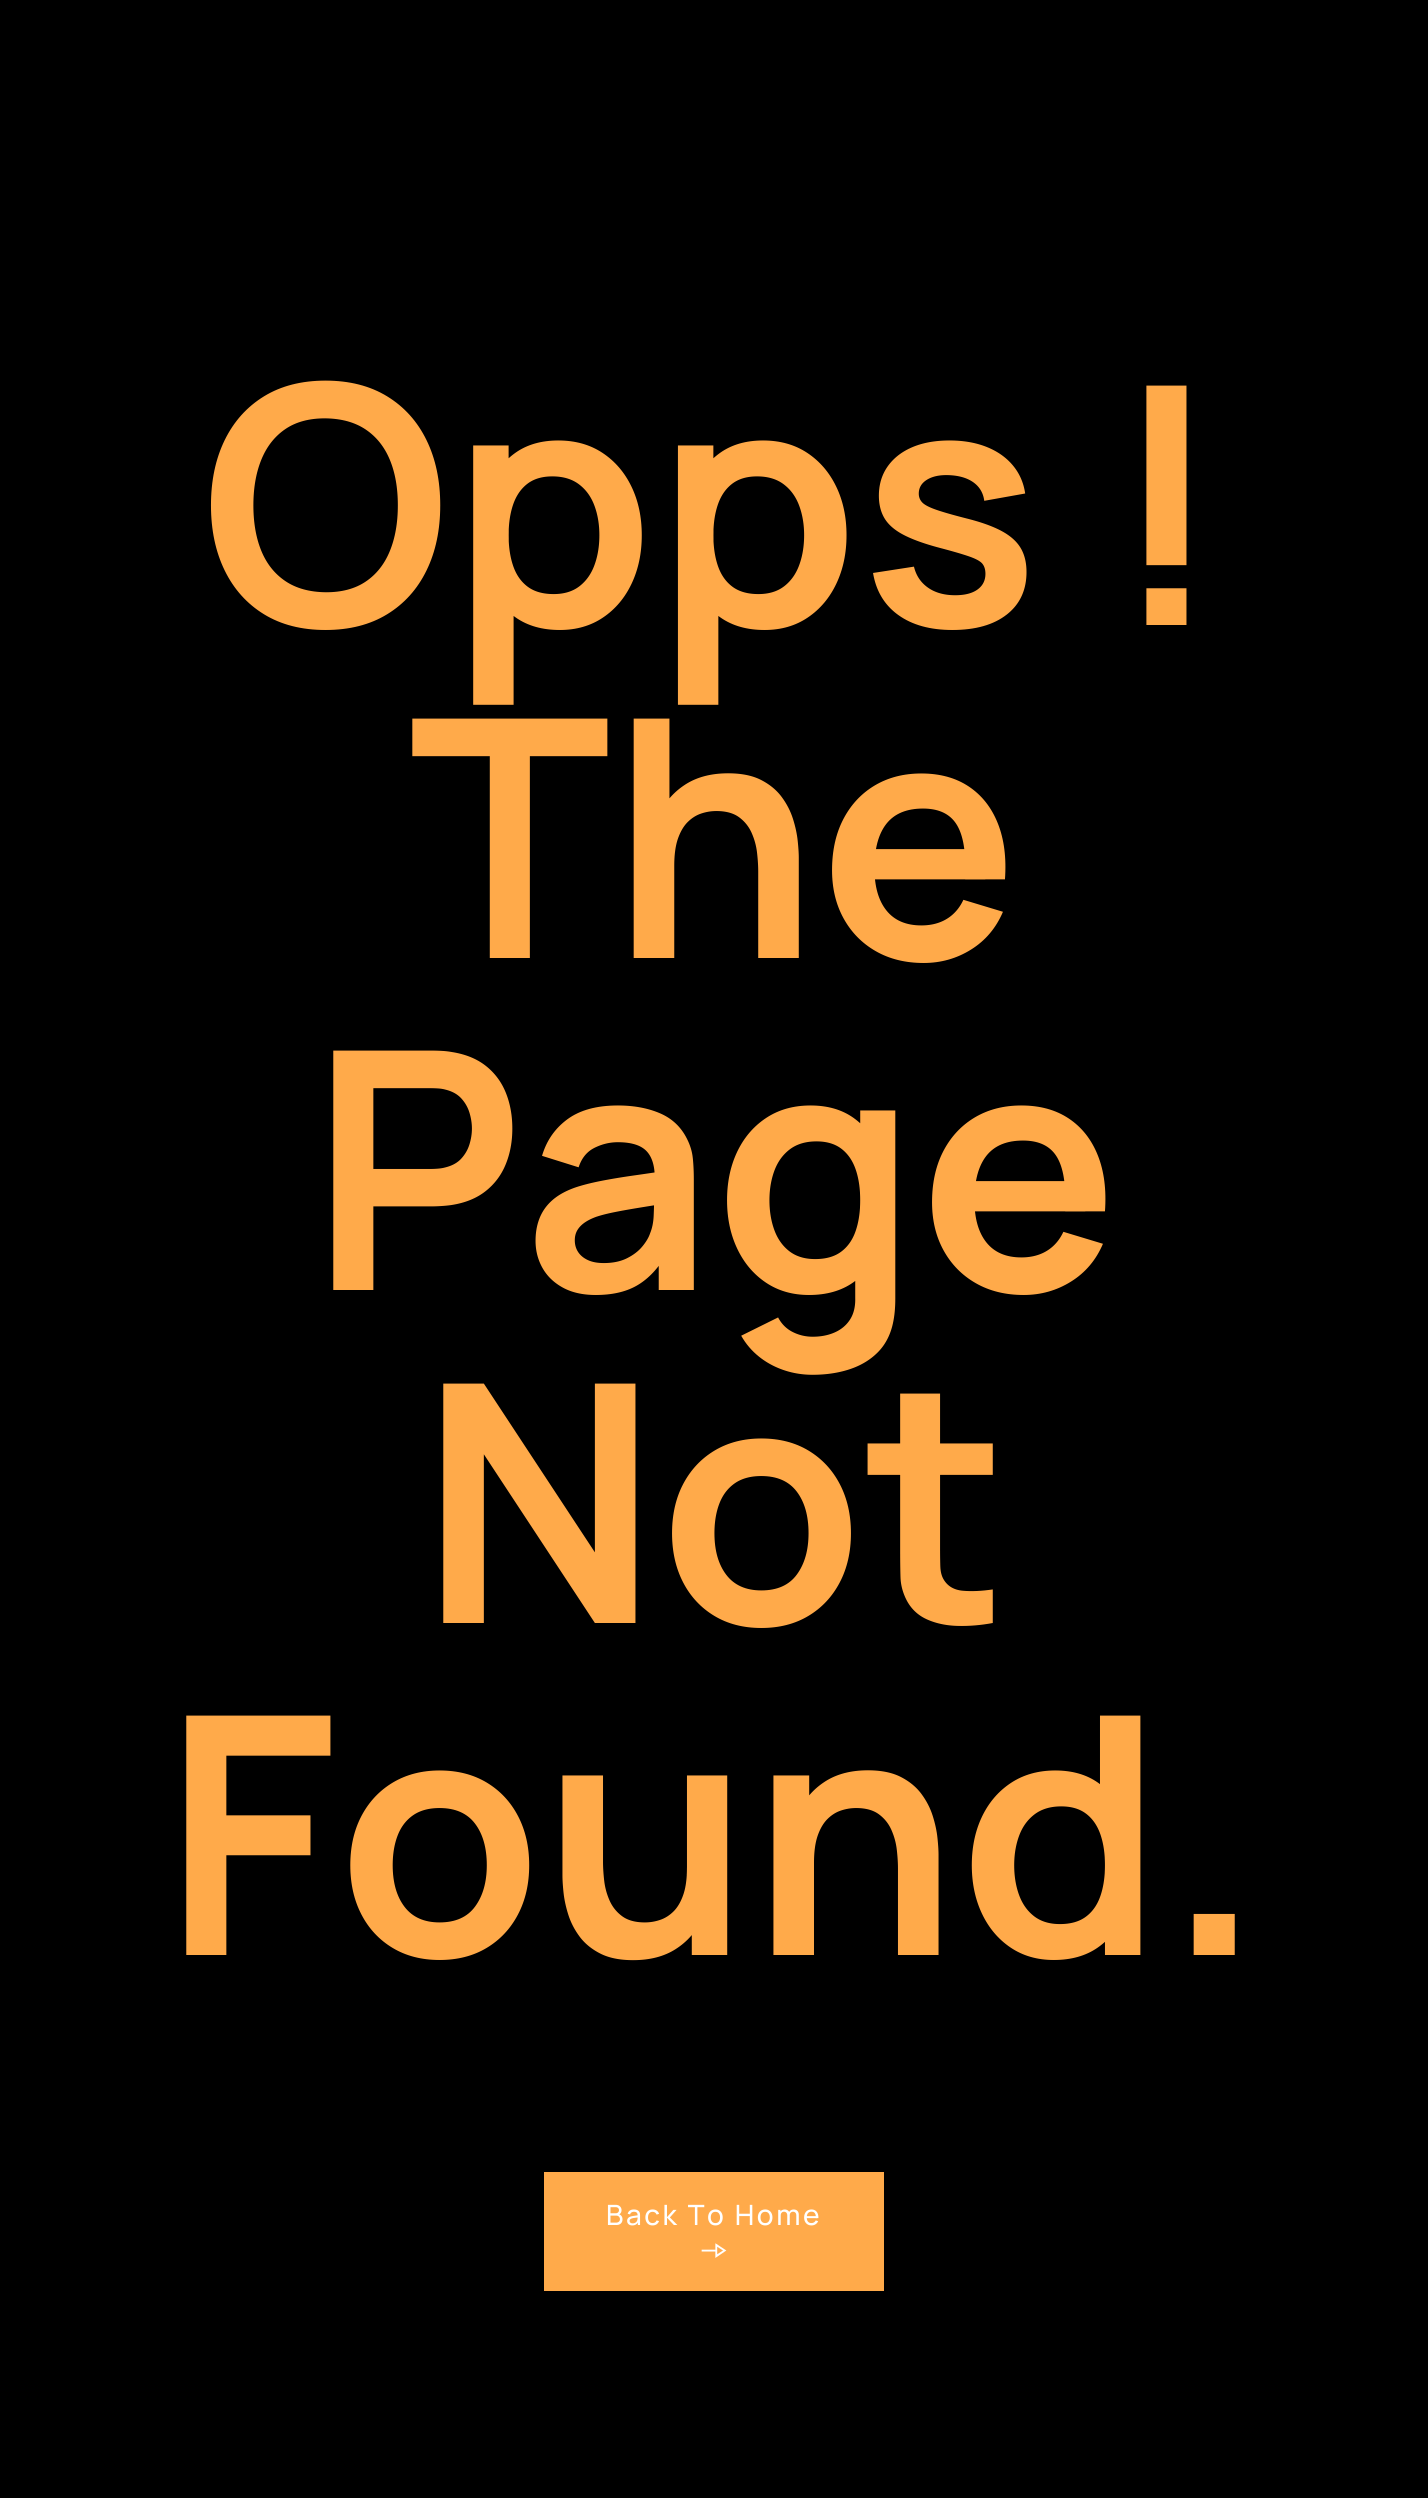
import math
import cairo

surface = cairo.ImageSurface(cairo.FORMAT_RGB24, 1428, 2498)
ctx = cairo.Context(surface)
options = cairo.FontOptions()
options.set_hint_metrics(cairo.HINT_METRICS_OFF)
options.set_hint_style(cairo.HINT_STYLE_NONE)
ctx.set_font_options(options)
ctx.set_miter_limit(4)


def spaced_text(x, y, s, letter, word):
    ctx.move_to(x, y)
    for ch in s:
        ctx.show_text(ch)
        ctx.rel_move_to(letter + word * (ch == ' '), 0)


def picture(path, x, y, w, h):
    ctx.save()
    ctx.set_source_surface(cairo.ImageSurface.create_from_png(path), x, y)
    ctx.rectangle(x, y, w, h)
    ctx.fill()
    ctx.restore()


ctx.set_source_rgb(0, 0, 0)
ctx.paint()
ctx.select_font_face("Manrope", cairo.FONT_SLANT_NORMAL, cairo.FONT_WEIGHT_BOLD)
ctx.set_font_size(332.5)
ctx.set_source_rgb(1, 0.667, 0.29)
ctx.move_to(201, 625)
ctx.show_text("Opps !")
ctx.move_to(409, 958)
ctx.show_text("The")
ctx.move_to(310, 1290)
ctx.show_text("Page")
ctx.move_to(420, 1623)
ctx.show_text("Not")
ctx.move_to(163, 1955)
ctx.show_text("Found.")
ctx.rectangle(544, 2172, 340, 119)
ctx.fill()
ctx.select_font_face("Manrope Medium")
ctx.set_font_size(28)
ctx.set_source_rgb(1, 1, 1)
spaced_text(606, 2225, "Back To Home", 2.6, 0)
picture("img1.png", 701, 2243, 26, 15)
surface.write_to_png("page.png")
